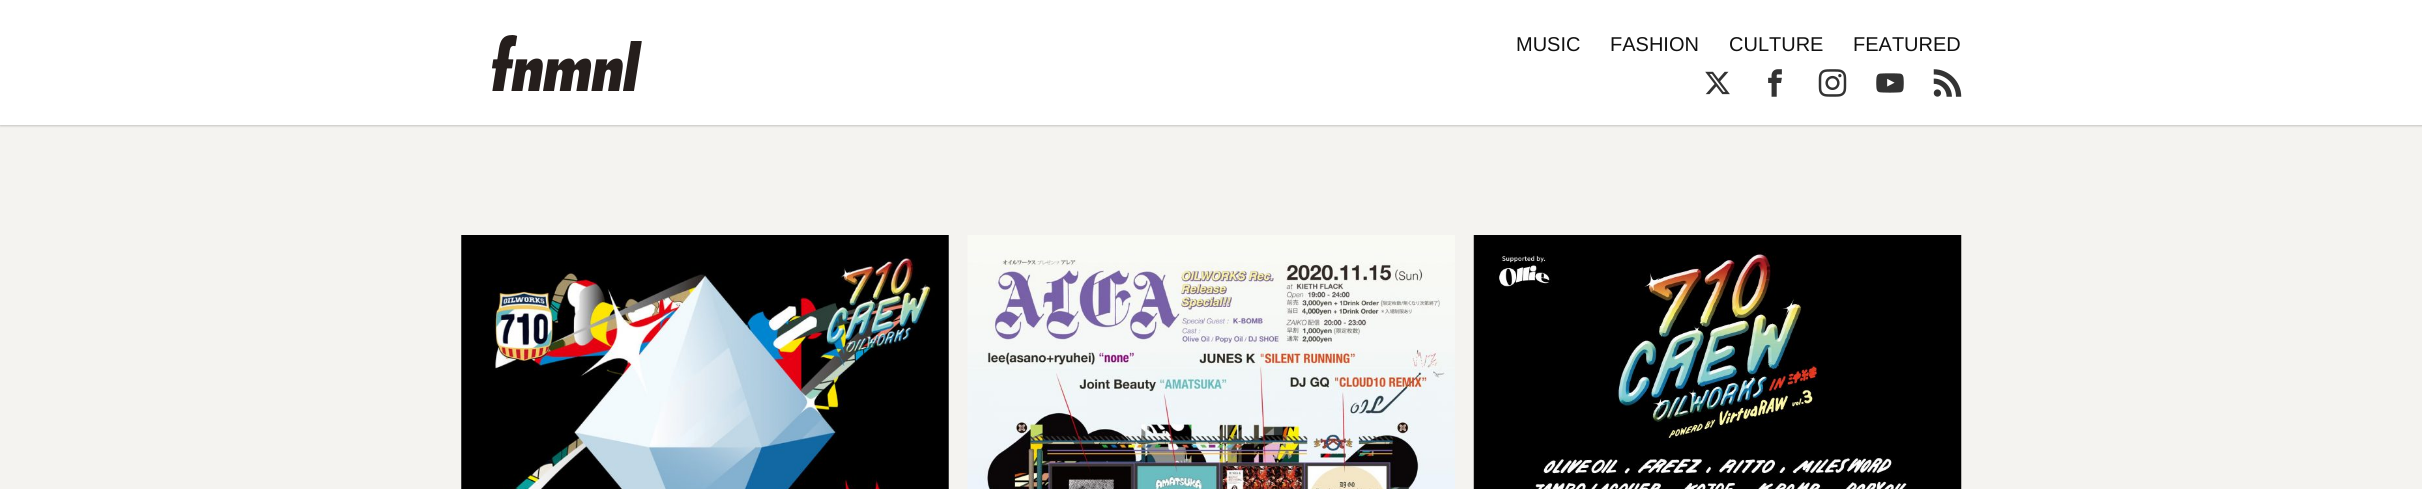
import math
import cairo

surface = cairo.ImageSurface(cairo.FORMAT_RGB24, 2422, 489)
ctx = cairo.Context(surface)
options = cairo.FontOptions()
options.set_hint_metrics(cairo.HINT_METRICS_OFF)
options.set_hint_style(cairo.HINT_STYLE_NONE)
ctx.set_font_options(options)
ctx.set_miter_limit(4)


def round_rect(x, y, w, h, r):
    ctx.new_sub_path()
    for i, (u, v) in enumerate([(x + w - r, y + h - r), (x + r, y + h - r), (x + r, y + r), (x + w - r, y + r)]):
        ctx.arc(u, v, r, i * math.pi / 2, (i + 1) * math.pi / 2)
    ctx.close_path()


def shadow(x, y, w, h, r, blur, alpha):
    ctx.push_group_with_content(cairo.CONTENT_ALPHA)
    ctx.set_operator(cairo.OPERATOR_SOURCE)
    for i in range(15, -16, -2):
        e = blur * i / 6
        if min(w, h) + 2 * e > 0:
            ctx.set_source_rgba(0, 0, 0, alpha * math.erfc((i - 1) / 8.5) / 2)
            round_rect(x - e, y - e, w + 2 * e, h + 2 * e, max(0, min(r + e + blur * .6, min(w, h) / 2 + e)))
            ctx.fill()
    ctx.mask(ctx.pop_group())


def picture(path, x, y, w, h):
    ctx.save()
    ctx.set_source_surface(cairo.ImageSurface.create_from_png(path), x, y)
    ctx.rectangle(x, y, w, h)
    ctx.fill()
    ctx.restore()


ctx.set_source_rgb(0.957, 0.953, 0.941)
ctx.paint()
ctx.set_source_rgb(0, 0, 0)
shadow(0, 1, 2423, 125, 0, 1, 0.2)
ctx.set_source_rgb(1, 1, 1)
ctx.rectangle(0, 0, 2422, 125)
ctx.fill()
picture("img1.png", 492, 35, 150, 56)
ctx.select_font_face("Liberation Sans")
ctx.set_font_size(20)
ctx.set_source_rgb(0.067, 0.067, 0.067)
ctx.move_to(1516, 51)
ctx.show_text("MUSIC")
ctx.move_to(1610, 51)
ctx.show_text("FASHION")
ctx.move_to(1729, 51)
ctx.show_text("CULTURE")
ctx.move_to(1853, 51)
ctx.show_text("FEATURED")
picture("img2.png", 1705, 71, 25, 24)
picture("img3.png", 1768, 69, 14, 28)
picture("img4.png", 1818, 69, 29, 28)
picture("img5.png", 1876, 73, 28, 20)
picture("img6.png", 1933, 69, 29, 28)
picture("img7.png", 461, 235, 488, 254)
picture("img8.png", 967, 235, 488, 254)
picture("img9.png", 1473, 235, 489, 254)
surface.write_to_png("page.png")
